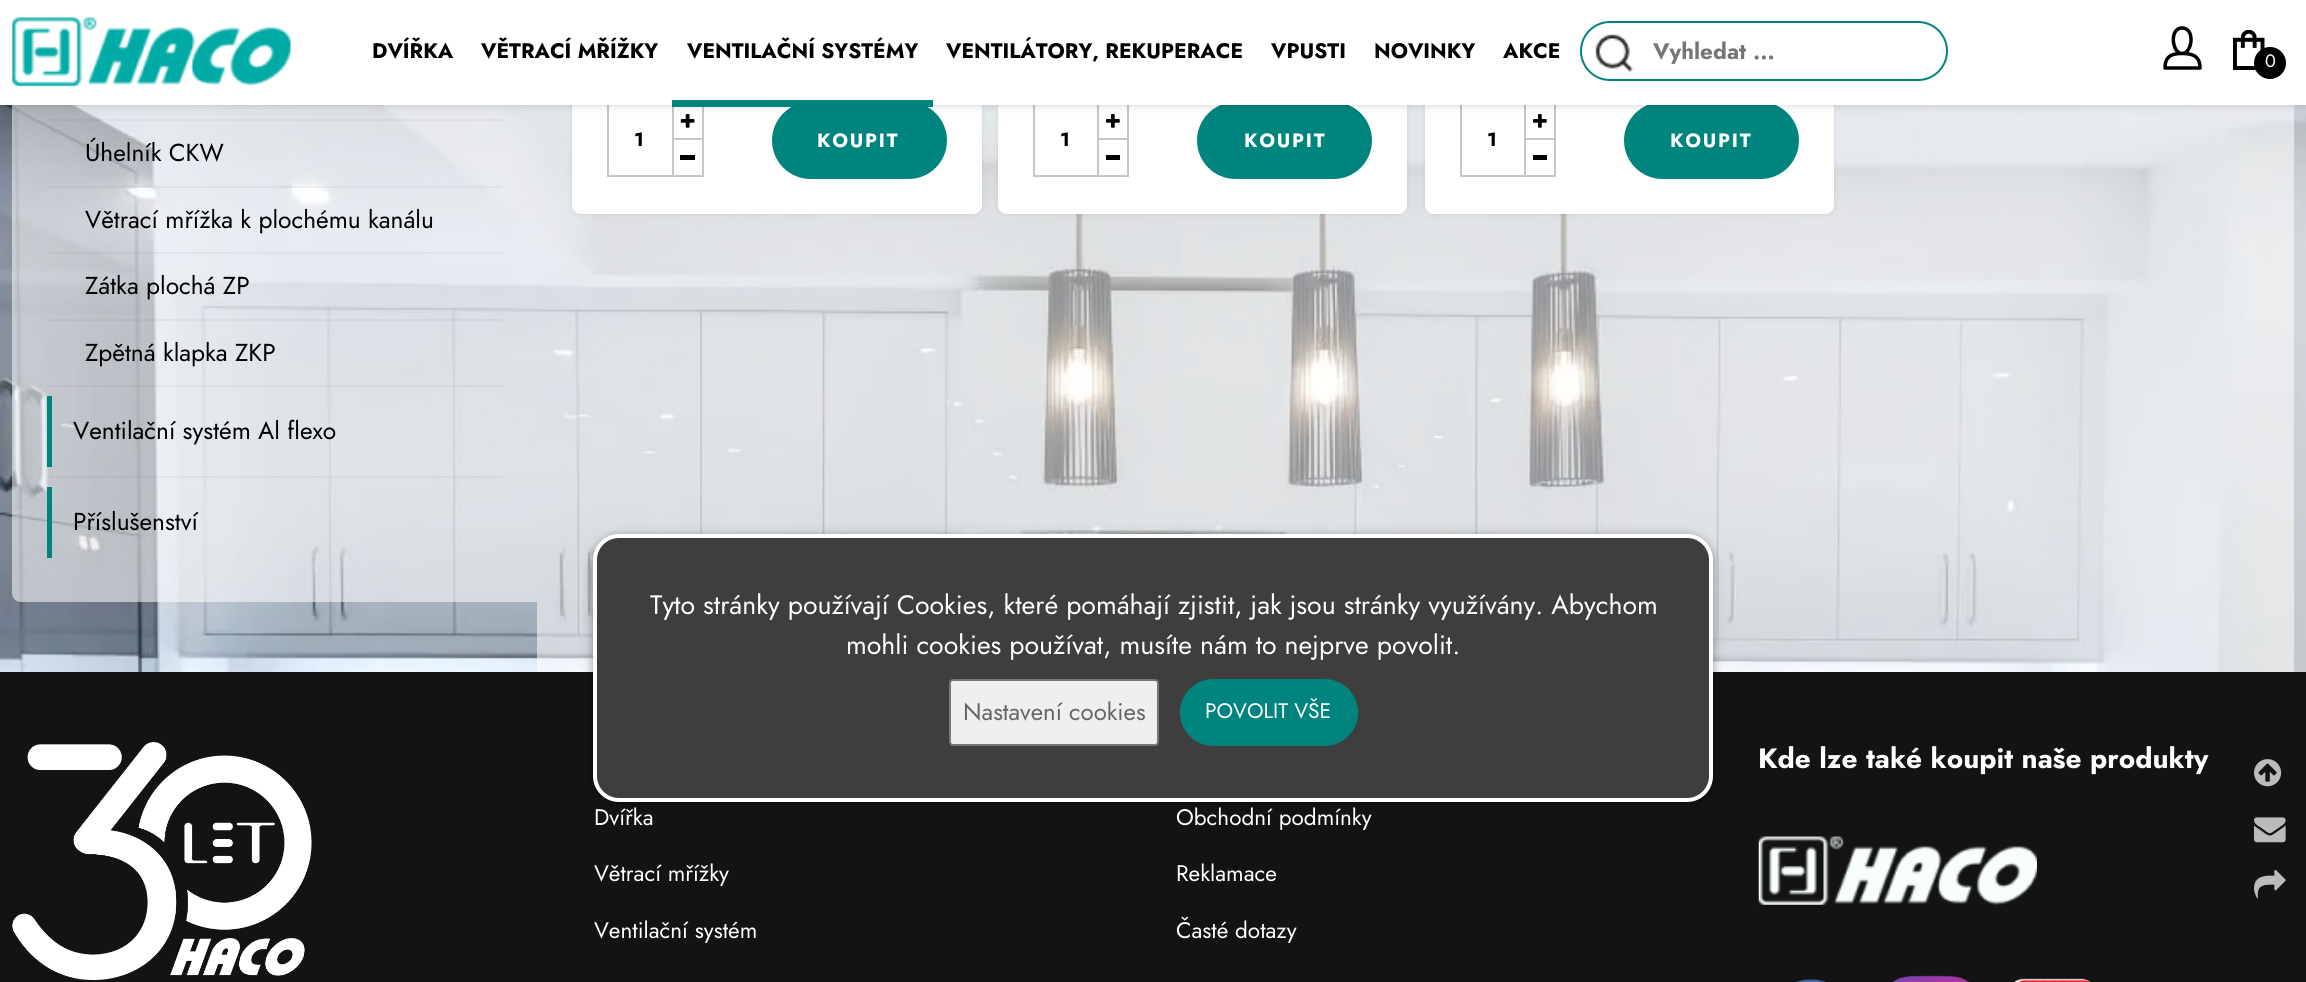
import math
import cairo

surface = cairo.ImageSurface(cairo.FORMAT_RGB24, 2306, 982)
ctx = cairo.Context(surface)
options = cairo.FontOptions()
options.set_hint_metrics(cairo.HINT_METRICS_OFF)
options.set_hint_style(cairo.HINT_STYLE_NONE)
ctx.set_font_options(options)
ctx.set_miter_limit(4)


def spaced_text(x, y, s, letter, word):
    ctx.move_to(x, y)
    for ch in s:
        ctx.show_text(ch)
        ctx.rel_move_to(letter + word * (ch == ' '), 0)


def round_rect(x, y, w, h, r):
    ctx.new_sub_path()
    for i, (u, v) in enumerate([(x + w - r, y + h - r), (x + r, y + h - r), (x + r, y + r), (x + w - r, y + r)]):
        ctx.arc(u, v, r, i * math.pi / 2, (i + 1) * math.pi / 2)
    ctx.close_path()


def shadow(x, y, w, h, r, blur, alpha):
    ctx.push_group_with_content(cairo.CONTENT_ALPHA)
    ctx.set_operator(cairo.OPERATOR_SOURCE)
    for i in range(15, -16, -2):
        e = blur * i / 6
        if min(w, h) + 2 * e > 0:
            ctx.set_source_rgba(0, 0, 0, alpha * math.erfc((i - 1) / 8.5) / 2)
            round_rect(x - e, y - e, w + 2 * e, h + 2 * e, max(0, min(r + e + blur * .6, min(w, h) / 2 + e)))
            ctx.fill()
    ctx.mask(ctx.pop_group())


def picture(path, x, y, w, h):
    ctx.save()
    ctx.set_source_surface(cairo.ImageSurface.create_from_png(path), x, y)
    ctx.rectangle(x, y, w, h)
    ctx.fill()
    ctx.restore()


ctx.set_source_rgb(1, 1, 1)
ctx.paint()
picture("img1.png", 0, 105, 2306, 567)
ctx.set_source_rgba(1, 1, 1, 0.54)
ctx.new_path()
ctx.move_to(21, -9)
ctx.line_to(537, -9)
ctx.line_to(537, 602)
ctx.line_to(21, 602)
ctx.curve_to(16, 602, 12, 598, 12, 593)
ctx.line_to(12, 0)
ctx.curve_to(12, -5, 16, -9, 21, -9)
ctx.close_path()
ctx.fill()
ctx.set_source_rgba(0.376, 0.376, 0.376, 0.07)
ctx.rectangle(47, 119, 455, 2)
ctx.fill()
ctx.set_source_rgba(1, 1, 1, 0.54)
ctx.rectangle(537, 105, 1757, 567)
ctx.fill()
ctx.set_source_rgb(0, 0, 0)
shadow(572, -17, 410, 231, 9, 2.5, 0.09)
ctx.set_source_rgb(1, 1, 1)
ctx.new_path()
ctx.move_to(572, -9)
ctx.line_to(982, -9)
ctx.line_to(982, 205)
ctx.curve_to(982, 210, 978, 214, 973, 214)
ctx.line_to(581, 214)
ctx.curve_to(576, 214, 572, 210, 572, 205)
ctx.close_path()
ctx.fill()
ctx.rectangle(608, 103, 65, 73)
ctx.set_source_rgb(0.78, 0.78, 0.78)
ctx.stroke()
ctx.rectangle(673, 103, 30, 36)
ctx.stroke()
picture("img5.png", 680, 114, 15, 14)
ctx.set_source_rgb(0, 0.522, 0.494)
round_rect(772, 102, 175, 77, 38.5)
ctx.fill()
ctx.set_source_rgb(0, 0, 0)
shadow(998, -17, 409, 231, 9, 2.5, 0.09)
ctx.set_source_rgb(1, 1, 1)
ctx.new_path()
ctx.move_to(998, -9)
ctx.line_to(1407, -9)
ctx.line_to(1407, 205)
ctx.curve_to(1407, 210, 1403, 214, 1398, 214)
ctx.line_to(1007, 214)
ctx.curve_to(1002, 214, 998, 210, 998, 205)
ctx.close_path()
ctx.fill()
ctx.rectangle(1034, 103, 64, 73)
ctx.set_source_rgb(0.78, 0.78, 0.78)
ctx.stroke()
ctx.rectangle(1098, 103, 30, 36)
ctx.stroke()
picture("img6.png", 1106, 114, 14, 14)
ctx.set_source_rgb(0, 0.522, 0.494)
round_rect(1197, 102, 175, 77, 38.5)
ctx.fill()
ctx.set_source_rgb(0, 0, 0)
shadow(1425, -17, 409, 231, 9, 2.5, 0.09)
ctx.set_source_rgb(1, 1, 1)
ctx.new_path()
ctx.move_to(1425, -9)
ctx.line_to(1834, -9)
ctx.line_to(1834, 205)
ctx.curve_to(1834, 210, 1830, 214, 1825, 214)
ctx.line_to(1434, 214)
ctx.curve_to(1429, 214, 1425, 210, 1425, 205)
ctx.close_path()
ctx.fill()
ctx.rectangle(1461, 103, 64, 73)
ctx.set_source_rgb(0.78, 0.78, 0.78)
ctx.stroke()
ctx.rectangle(1525, 103, 30, 36)
ctx.stroke()
picture("img6.png", 1533, 114, 14, 14)
ctx.set_source_rgb(0, 0.522, 0.494)
round_rect(1624, 102, 175, 77, 38.5)
ctx.fill()
ctx.set_source_rgb(0, 0, 0)
shadow(0, 0, 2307, 105, 0, 4.5, 0.18)
ctx.set_source_rgb(1, 1, 1)
ctx.rectangle(0, 0, 2306, 105)
ctx.fill()
picture("img2.png", 11, 17, 280, 70)
ctx.select_font_face("Jost", cairo.FONT_SLANT_NORMAL, cairo.FONT_WEIGHT_BOLD)
ctx.set_font_size(21)
ctx.set_source_rgb(0, 0, 0)
ctx.move_to(372, 58)
ctx.show_text("DVÍŘKA")
ctx.move_to(481, 58)
ctx.show_text("VĚTRACÍ MŘÍŽKY")
ctx.set_source_rgb(0, 0.522, 0.494)
ctx.rectangle(672, 100, 261, 7)
ctx.fill()
ctx.set_source_rgb(0, 0, 0)
ctx.move_to(687, 58)
ctx.show_text("VENTILAČNÍ SYSTÉMY")
ctx.move_to(946, 58)
ctx.show_text("VENTILÁTORY, REKUPERACE")
ctx.move_to(1271, 58)
ctx.show_text("VPUSTI")
ctx.move_to(1374, 58)
ctx.show_text("NOVINKY")
ctx.move_to(1503, 58)
ctx.show_text("AKCE")
picture("img3.png", 1595, 34, 39, 39)
round_rect(1581, 22, 366, 58, 29)
ctx.set_source_rgb(0, 0.522, 0.494)
ctx.stroke()
ctx.set_font_size(22.5)
ctx.set_source_rgb(0.459, 0.459, 0.459)
ctx.move_to(1653, 59)
ctx.show_text("Vyhledat ...")
ctx.new_path()
ctx.move_to(2182, 53.5)
ctx.curve_to(2192.5, 53.5, 2195.5, 28, 2182, 28)
ctx.curve_to(2169, 28, 2172, 53.5, 2182, 53.5)
ctx.close_path()
ctx.move_to(2182, 53.5)
ctx.curve_to(2191, 53.5, 2200, 55, 2200, 68)
ctx.line_to(2165, 68)
ctx.curve_to(2165, 55, 2173.5, 53.5, 2182, 53.5)
ctx.close_path()
ctx.set_source_rgb(0, 0, 0)
ctx.set_line_width(3.5)
ctx.set_line_cap(cairo.LINE_CAP_ROUND)
ctx.set_line_join(cairo.LINE_JOIN_ROUND)
ctx.stroke()
picture("img4.png", 2233, 30, 32, 40)
ctx.arc(2270, 63, 16, 0, 2 * math.pi)
ctx.fill()
ctx.select_font_face("Jost")
ctx.set_font_size(18)
ctx.set_source_rgb(1, 1, 1)
ctx.move_to(2265, 67)
ctx.show_text("0")
ctx.set_source_rgba(0.376, 0.376, 0.376, 0.07)
ctx.rectangle(47, 385, 455, 2)
ctx.fill()
ctx.rectangle(47, 186, 455, 2)
ctx.fill()
ctx.set_font_size(24.5)
ctx.set_source_rgb(0, 0, 0)
ctx.move_to(85, 161)
ctx.show_text("Úhelník CKW")
ctx.set_source_rgba(0.376, 0.376, 0.376, 0.07)
ctx.rectangle(47, 252, 455, 2)
ctx.fill()
ctx.set_source_rgb(0, 0, 0)
ctx.move_to(85, 228)
ctx.show_text("Větrací mřížka k plochému kanálu")
ctx.set_source_rgba(0.376, 0.376, 0.376, 0.07)
ctx.rectangle(47, 319, 455, 2)
ctx.fill()
ctx.set_source_rgb(0, 0, 0)
ctx.move_to(85, 294)
ctx.show_text("Zátka plochá ZP")
ctx.move_to(85, 361)
ctx.show_text("Zpětná klapka ZKP")
ctx.set_source_rgba(0.376, 0.376, 0.376, 0.07)
ctx.rectangle(47, 476, 455, 2)
ctx.fill()
ctx.set_source_rgb(0, 0.522, 0.494)
ctx.rectangle(47, 396, 5, 71)
ctx.fill()
ctx.set_source_rgb(0, 0, 0)
ctx.move_to(73, 439)
ctx.show_text("Ventilační systém Al flexo")
ctx.set_source_rgb(0, 0.522, 0.494)
ctx.rectangle(47, 487, 5, 71)
ctx.fill()
ctx.set_source_rgb(0, 0, 0)
ctx.move_to(73, 530)
ctx.show_text("Příslušenství")
ctx.select_font_face("Jost", cairo.FONT_SLANT_NORMAL, cairo.FONT_WEIGHT_BOLD)
ctx.set_font_size(19.25)
spaced_text(634, 146, "1", 1.75, 0)
ctx.rectangle(673, 139, 30, 37)
ctx.set_source_rgb(0.78, 0.78, 0.78)
ctx.set_line_width(2)
ctx.set_line_cap(cairo.LINE_CAP_BUTT)
ctx.set_line_join(cairo.LINE_JOIN_MITER)
ctx.stroke()
ctx.set_source_rgb(0, 0, 0)
ctx.rectangle(680, 155, 15, 5)
ctx.fill()
ctx.set_source_rgb(1, 1, 1)
spaced_text(817, 147, "KOUPIT", 1.75, 0)
ctx.set_source_rgb(0, 0, 0)
spaced_text(1060, 146, "1", 1.75, 0)
ctx.rectangle(1098, 139, 30, 37)
ctx.set_source_rgb(0.78, 0.78, 0.78)
ctx.stroke()
ctx.set_source_rgb(0, 0, 0)
ctx.rectangle(1106, 155, 14, 5)
ctx.fill()
ctx.set_source_rgb(1, 1, 1)
spaced_text(1244, 147, "KOUPIT", 1.75, 0)
ctx.set_source_rgb(0, 0, 0)
spaced_text(1487, 146, "1", 1.75, 0)
ctx.rectangle(1525, 139, 30, 37)
ctx.set_source_rgb(0.78, 0.78, 0.78)
ctx.stroke()
ctx.set_source_rgb(0, 0, 0)
ctx.rectangle(1533, 155, 14, 5)
ctx.fill()
ctx.set_source_rgb(1, 1, 1)
spaced_text(1670, 147, "KOUPIT", 1.75, 0)
ctx.set_source_rgb(0.075, 0.075, 0.075)
ctx.rectangle(0, 672, 2306, 310)
ctx.fill()
ctx.set_source_rgb(0, 0, 0)
shadow(593, 536, 1120, 267, 26, 5, 0.4)
ctx.set_source_rgb(0.243, 0.243, 0.243)
round_rect(595, 536, 1116, 264, 24)
ctx.fill_preserve()
ctx.set_source_rgb(1, 1, 1)
ctx.set_line_width(4)
ctx.stroke()
ctx.select_font_face("Jost")
ctx.set_font_size(26.65)
ctx.move_to(650, 614)
ctx.show_text("Tyto stránky používají Cookies, které pomáhají zjistit, jak jsou stránky využívány. Abychom")
ctx.move_to(846, 654)
ctx.show_text("mohli cookies používat, musíte nám to nejprve povolit.")
ctx.set_source_rgb(0.937, 0.937, 0.937)
round_rect(950, 680, 208, 65, 3)
ctx.fill_preserve()
ctx.set_source_rgb(0.463, 0.463, 0.463)
ctx.set_line_width(2)
ctx.stroke()
ctx.set_font_size(24)
ctx.set_source_rgb(0.4, 0.4, 0.4)
ctx.move_to(963, 720)
ctx.show_text("Nastavení cookies")
ctx.set_source_rgb(0, 0.522, 0.494)
round_rect(1180, 679, 178, 67, 33.5)
ctx.fill()
ctx.set_font_size(21)
ctx.set_source_rgb(1, 1, 1)
ctx.move_to(1205, 718)
ctx.show_text("POVOLIT VŠE")
picture("img7.png", 12, 742, 300, 238)
ctx.select_font_face("Jost", cairo.FONT_SLANT_NORMAL, cairo.FONT_WEIGHT_BOLD)
ctx.set_font_size(28)
ctx.move_to(1758, 768)
ctx.show_text("Kde lze také koupit naše produkty")
picture("img8.png", 1758, 836, 279, 69)
picture("img9.png", 1795, 979, 31, 3)
picture("img10.png", 1892, 975, 77, 7)
picture("img11.png", 2014, 978, 77, 4)
ctx.select_font_face("Jost")
ctx.set_font_size(22.5)
ctx.move_to(594, 825)
ctx.show_text("Dvířka")
ctx.move_to(594, 881)
ctx.show_text("Větrací mřížky")
ctx.move_to(594, 938)
ctx.show_text("Ventilační systém")
ctx.move_to(1176, 825)
ctx.show_text("Obchodní podmínky")
ctx.move_to(1176, 881)
ctx.show_text("Reklamace")
ctx.move_to(1176, 938)
ctx.show_text("Časté dotazy")
picture("img12.png", 2254, 759, 28, 28)
picture("img13.png", 2254, 817, 32, 26)
picture("img14.png", 2254, 870, 32, 29)
surface.write_to_png("page.png")
